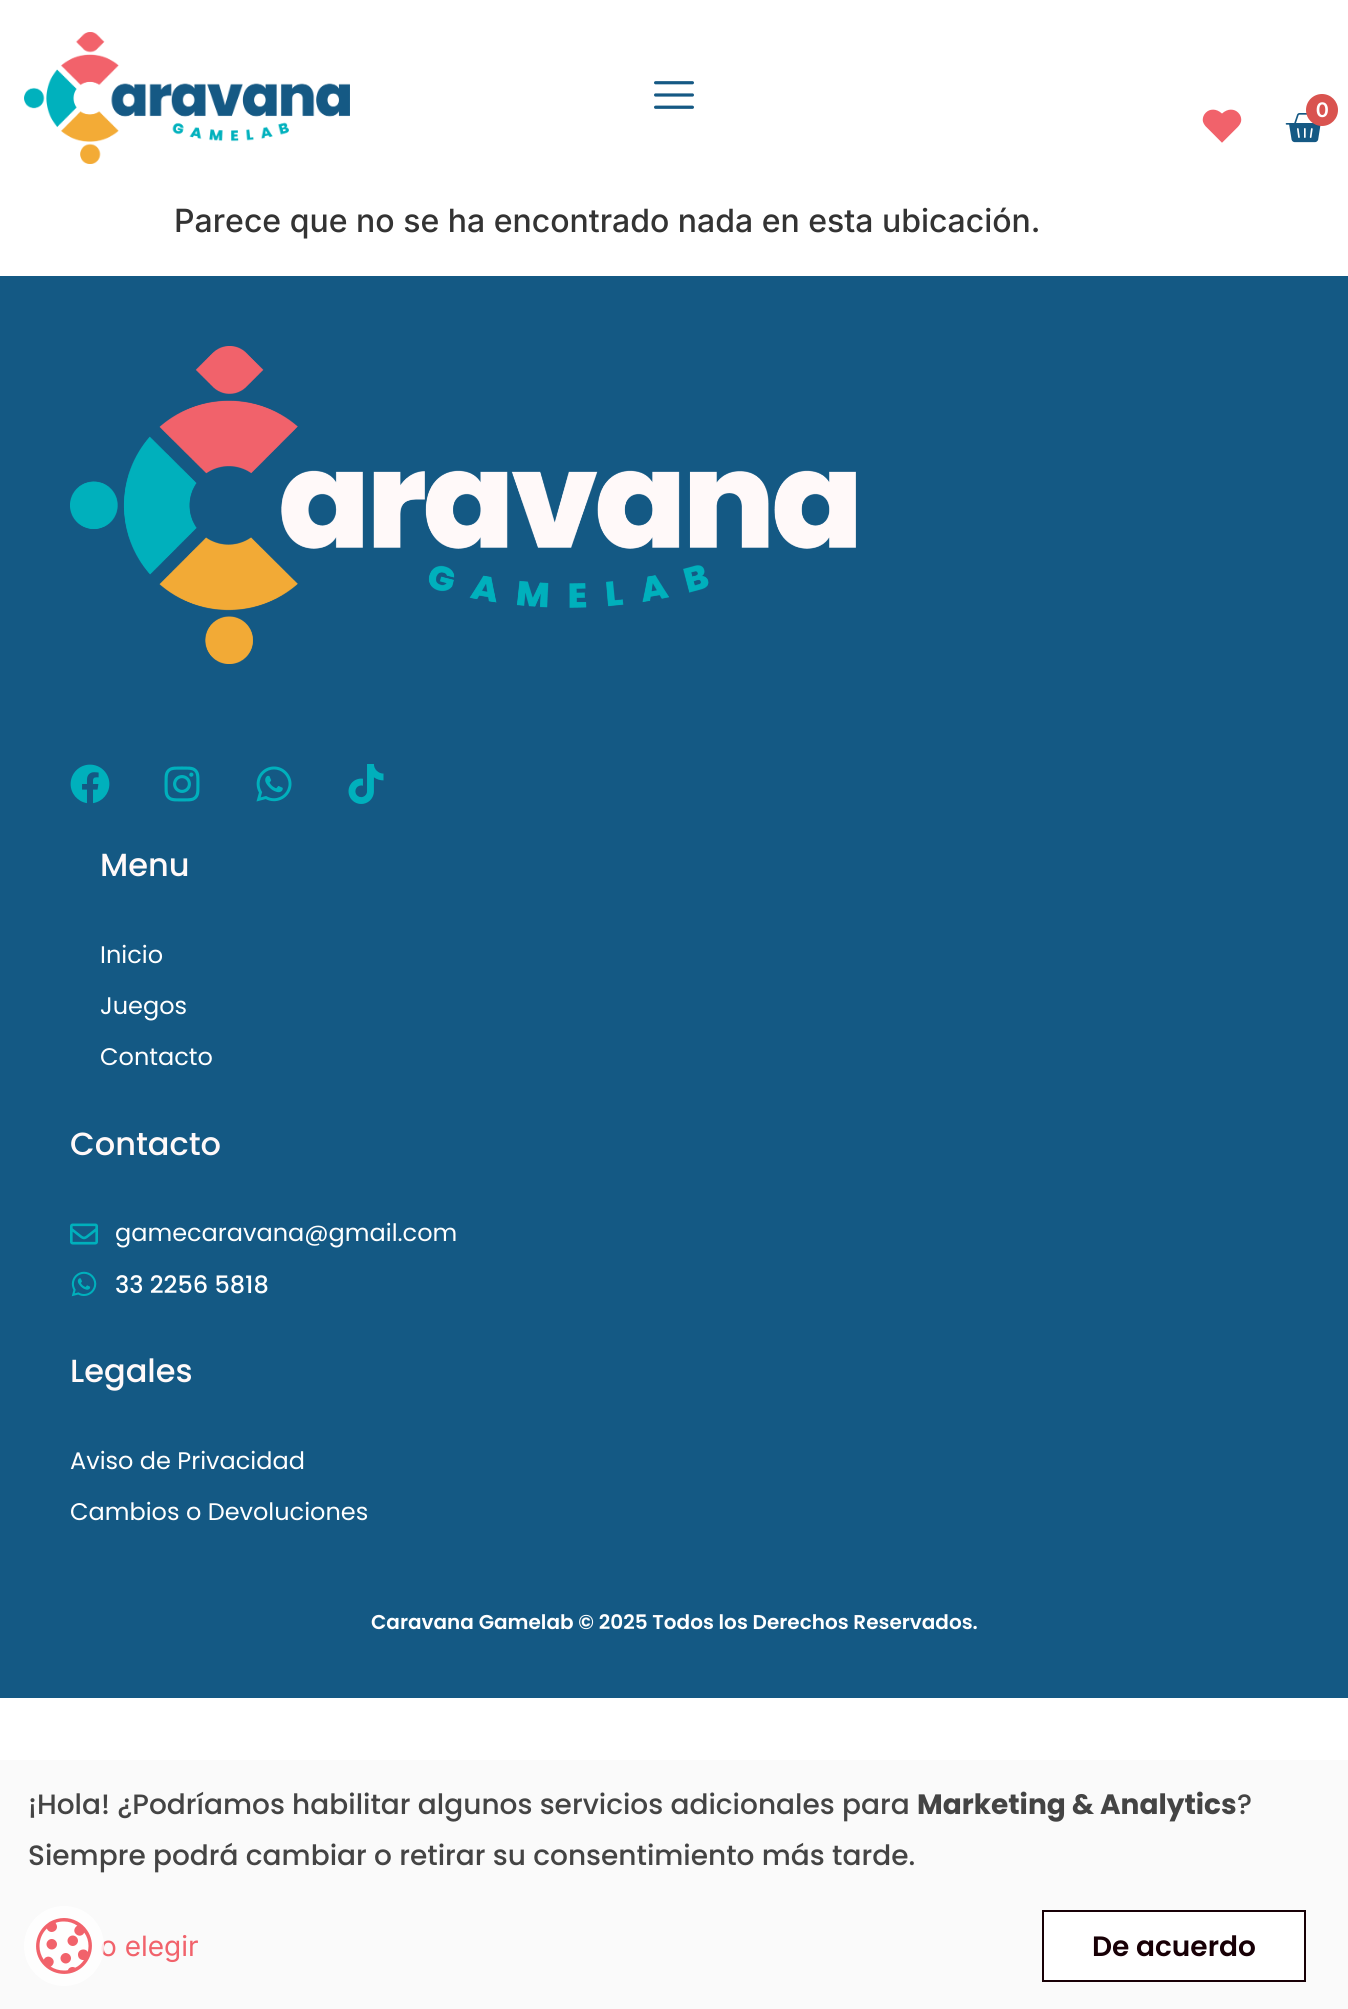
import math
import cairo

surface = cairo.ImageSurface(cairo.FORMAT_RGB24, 1348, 2009)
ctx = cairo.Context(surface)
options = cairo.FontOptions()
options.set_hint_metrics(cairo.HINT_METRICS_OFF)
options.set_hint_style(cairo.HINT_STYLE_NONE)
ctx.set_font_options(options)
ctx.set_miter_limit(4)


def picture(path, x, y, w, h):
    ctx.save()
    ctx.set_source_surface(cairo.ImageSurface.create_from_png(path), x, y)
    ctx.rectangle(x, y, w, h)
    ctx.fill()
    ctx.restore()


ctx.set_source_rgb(1, 1, 1)
ctx.paint()
picture("img1.png", 24, 32, 326, 132)
picture("img2.png", 654, 81, 40, 28)
picture("img3.png", 1202, 109, 40, 34)
picture("img4.png", 1285, 113, 36, 30)
ctx.set_source_rgb(0.851, 0.325, 0.31)
ctx.arc(1322, 110, 16, 0, 2 * math.pi)
ctx.fill()
ctx.select_font_face("Inter Tight SemiBold")
ctx.set_font_size(20)
ctx.set_source_rgb(1, 1, 1)
ctx.move_to(1316, 117)
ctx.show_text("0")
ctx.select_font_face("Inter Medium")
ctx.set_font_size(32)
ctx.set_source_rgb(0.2, 0.2, 0.2)
ctx.move_to(174, 232)
ctx.show_text("Parece que no se ha encontrado nada en esta ubicación.")
ctx.set_source_rgb(0.082, 0.349, 0.518)
ctx.rectangle(0, 276, 1348, 1422)
ctx.fill()
picture("img5.png", 70, 346, 786, 318)
picture("img6.png", 70, 764, 40, 40)
picture("img7.png", 164, 766, 36, 36)
picture("img8.png", 256, 766, 36, 36)
picture("img9.png", 348, 764, 36, 40)
ctx.select_font_face("Poppins Medium")
ctx.set_source_rgb(1, 0.976, 0.976)
ctx.move_to(100, 876)
ctx.show_text("Menu")
ctx.select_font_face("Poppins")
ctx.set_font_size(24)
ctx.set_source_rgb(1, 1, 1)
ctx.move_to(100, 963)
ctx.show_text("Inicio")
ctx.move_to(100, 1014)
ctx.show_text("Juegos")
ctx.move_to(100, 1065)
ctx.show_text("Contacto")
ctx.select_font_face("Poppins Medium")
ctx.set_font_size(32)
ctx.set_source_rgb(1, 0.976, 0.976)
ctx.move_to(70, 1155)
ctx.show_text("Contacto")
picture("img10.png", 70, 1223, 28, 22)
ctx.select_font_face("Poppins")
ctx.set_font_size(24)
ctx.set_source_rgb(1, 1, 1)
ctx.move_to(115, 1241)
ctx.show_text("gamecaravana@gmail.com")
picture("img11.png", 71, 1271, 26, 26)
ctx.select_font_face("Poppins Medium")
ctx.move_to(115, 1293)
ctx.show_text("33 2256 5818")
ctx.set_font_size(32)
ctx.set_source_rgb(1, 0.976, 0.976)
ctx.move_to(70, 1382)
ctx.show_text("Legales")
ctx.select_font_face("Poppins")
ctx.set_font_size(24)
ctx.set_source_rgb(1, 1, 1)
ctx.move_to(70, 1469)
ctx.show_text("Aviso de Privacidad")
ctx.move_to(70, 1520)
ctx.show_text("Cambios o Devoluciones")
ctx.select_font_face("Poppins SemiBold")
ctx.set_font_size(20)
ctx.move_to(371, 1629)
ctx.show_text("Caravana Gamelab © 2025 Todos los Derechos Reservados.")
ctx.set_source_rgb(0.98, 0.98, 0.98)
ctx.rectangle(0, 1760, 1348, 249)
ctx.fill()
ctx.select_font_face("Poppins Medium")
ctx.set_font_size(28)
ctx.set_source_rgb(0.267, 0.267, 0.267)
ctx.move_to(28, 1814)
ctx.show_text("¡Hola! ¿Podríamos habilitar algunos servicios adicionales para")
ctx.select_font_face("Poppins", cairo.FONT_SLANT_NORMAL, cairo.FONT_WEIGHT_BOLD)
ctx.move_to(917, 1814)
ctx.show_text("Marketing & Analytics")
ctx.select_font_face("Poppins Medium")
ctx.move_to(1237, 1814)
ctx.show_text("?")
ctx.move_to(28, 1865)
ctx.show_text("Siempre podrá cambiar o retirar su consentimiento más tarde.")
ctx.select_font_face("Inter")
ctx.set_source_rgb(0.945, 0.384, 0.42)
ctx.move_to(100, 1956)
ctx.show_text("o elegir")
ctx.set_source_rgb(1, 1, 1)
ctx.rectangle(1043, 1911, 262, 70)
ctx.fill_preserve()
ctx.set_source_rgb(0.094, 0, 0.024)
ctx.stroke()
ctx.select_font_face("Poppins SemiBold")
ctx.move_to(1092, 1956)
ctx.show_text("De acuerdo")
ctx.set_source_rgba(1, 1, 1, 0.85)
ctx.new_path()
ctx.arc(64, 1946, 40, 0, 2 * math.pi)
ctx.fill()
picture("img12.png", 36, 1918, 56, 56)
surface.write_to_png("page.png")
